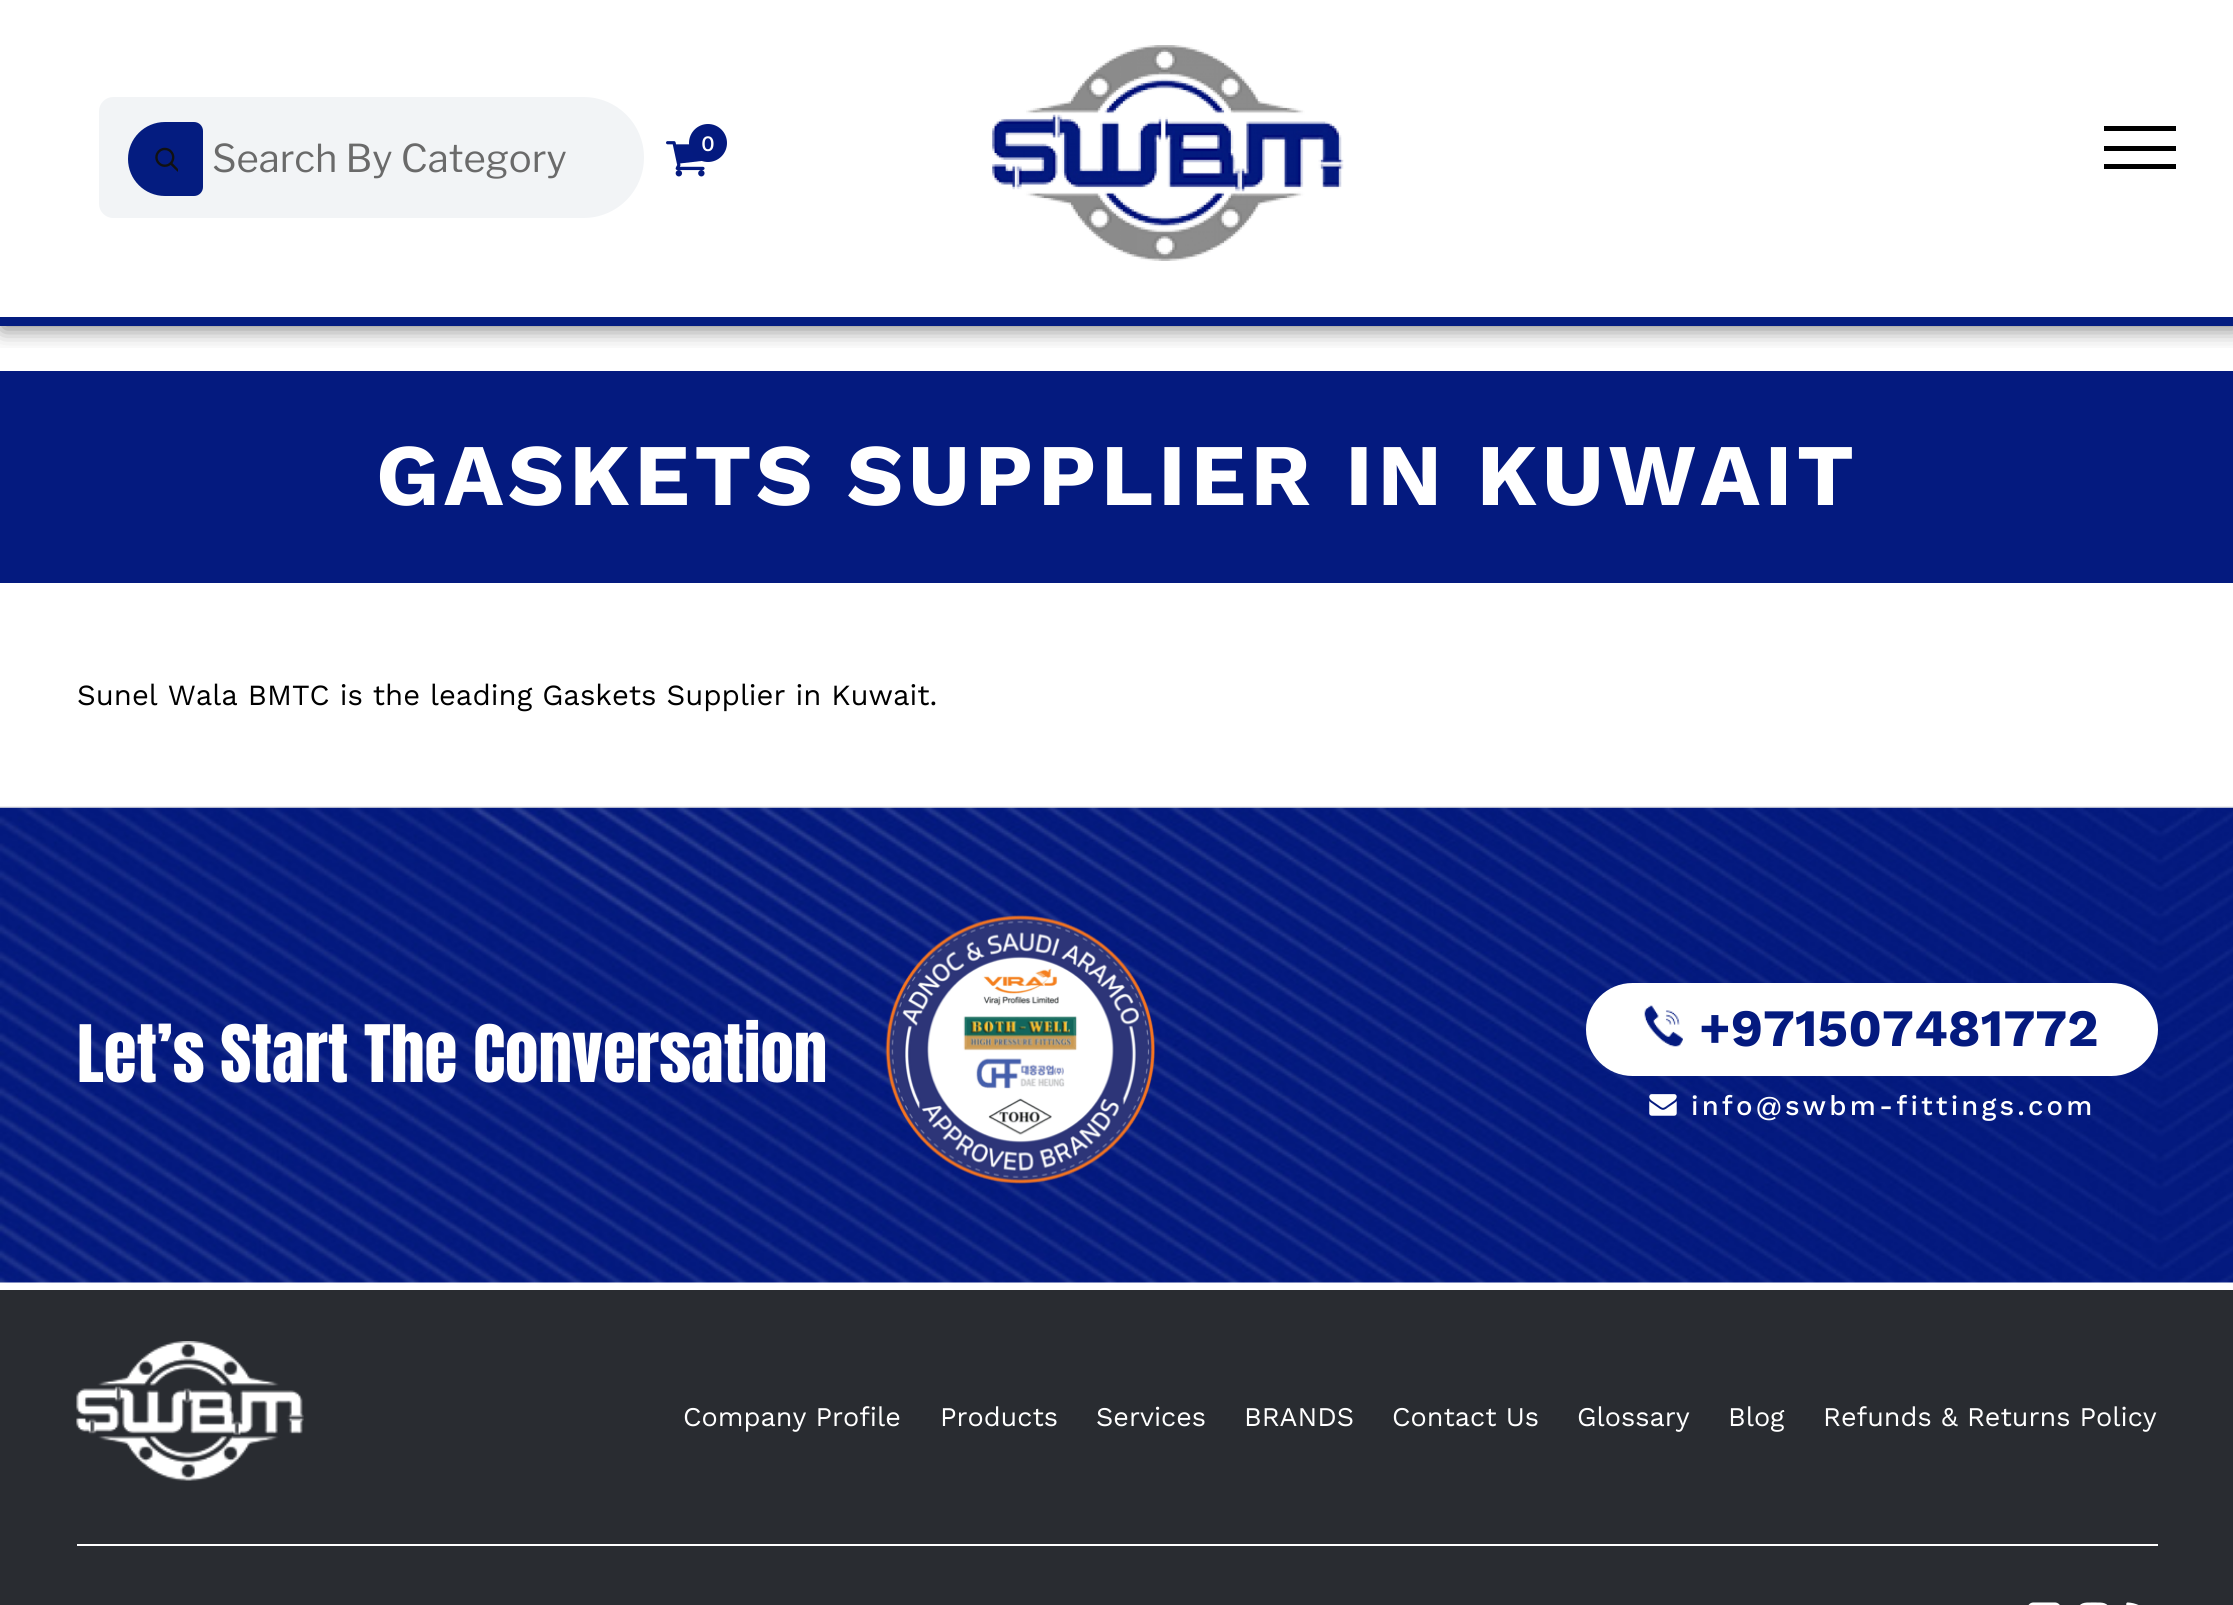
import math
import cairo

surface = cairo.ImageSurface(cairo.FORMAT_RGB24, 2233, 1605)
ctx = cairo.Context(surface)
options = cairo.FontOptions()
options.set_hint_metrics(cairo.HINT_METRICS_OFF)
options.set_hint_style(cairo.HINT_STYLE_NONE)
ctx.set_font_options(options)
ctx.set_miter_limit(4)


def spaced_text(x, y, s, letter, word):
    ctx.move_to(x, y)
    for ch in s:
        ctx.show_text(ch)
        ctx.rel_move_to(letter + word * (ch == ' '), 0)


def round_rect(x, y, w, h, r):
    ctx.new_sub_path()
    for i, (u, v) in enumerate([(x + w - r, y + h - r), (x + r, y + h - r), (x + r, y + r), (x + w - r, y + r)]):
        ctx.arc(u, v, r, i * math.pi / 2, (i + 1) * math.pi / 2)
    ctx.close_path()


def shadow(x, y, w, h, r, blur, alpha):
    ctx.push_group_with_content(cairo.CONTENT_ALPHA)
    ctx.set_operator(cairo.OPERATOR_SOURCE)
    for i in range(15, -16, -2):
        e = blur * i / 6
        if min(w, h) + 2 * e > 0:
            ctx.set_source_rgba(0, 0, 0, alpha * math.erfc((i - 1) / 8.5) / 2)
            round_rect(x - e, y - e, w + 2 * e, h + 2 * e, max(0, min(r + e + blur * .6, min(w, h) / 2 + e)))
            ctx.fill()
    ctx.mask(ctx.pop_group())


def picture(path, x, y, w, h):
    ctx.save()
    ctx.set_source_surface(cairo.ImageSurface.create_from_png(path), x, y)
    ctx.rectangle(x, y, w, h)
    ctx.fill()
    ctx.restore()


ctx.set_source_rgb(1, 1, 1)
ctx.paint()
ctx.save()
ctx.rectangle(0, 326, 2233, 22)
ctx.clip()
ctx.set_source_rgb(0, 0, 0)
shadow(2, 2, 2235, 327, 0, 11, 0.5)
ctx.restore()
ctx.set_source_rgb(0.016, 0.11, 0.502)
ctx.rectangle(0, 317, 2233, 9)
ctx.fill()
ctx.set_source_rgb(0.949, 0.957, 0.961)
ctx.new_path()
ctx.move_to(113, 97)
ctx.line_to(583.5, 97)
ctx.curve_to(617, 97, 644, 124, 644, 157.5)
ctx.curve_to(644, 191, 617, 218, 583.5, 218)
ctx.line_to(113, 218)
ctx.curve_to(105.5, 218, 99, 211.5, 99, 204)
ctx.line_to(99, 111)
ctx.curve_to(99, 103.5, 105.5, 97, 113, 97)
ctx.close_path()
ctx.fill()
ctx.set_source_rgb(0.016, 0.11, 0.502)
ctx.new_path()
ctx.move_to(165, 122)
ctx.line_to(194, 122)
ctx.curve_to(199, 122, 203, 126, 203, 131)
ctx.line_to(203, 187)
ctx.curve_to(203, 192, 199, 196, 194, 196)
ctx.line_to(165, 196)
ctx.curve_to(144.5, 196, 128, 179.5, 128, 159)
ctx.curve_to(128, 138.5, 144.5, 122, 165, 122)
ctx.close_path()
ctx.fill()
picture("img1.png", 155, 147, 23, 25)
ctx.select_font_face("Libre Franklin")
ctx.set_font_size(38.25)
ctx.set_source_rgb(0.416, 0.416, 0.416)
ctx.move_to(212, 172)
ctx.show_text("Search By Category")
picture("img2.png", 666, 141, 39, 36)
ctx.set_source_rgb(0.016, 0.102, 0.498)
ctx.arc(708, 143, 19, 0, 2 * math.pi)
ctx.fill()
ctx.select_font_face("Work Sans Medium")
ctx.set_font_size(22)
ctx.set_source_rgb(1, 1, 1)
ctx.move_to(701, 151)
ctx.show_text("0")
picture("img3.png", 992, 45, 352, 216)
ctx.set_source_rgb(0, 0, 0)
ctx.rectangle(2104, 126, 72, 5)
ctx.fill()
ctx.rectangle(2104, 146, 72, 5)
ctx.fill()
ctx.rectangle(2104, 164, 72, 5)
ctx.fill()
ctx.set_source_rgb(0.016, 0.102, 0.498)
ctx.rectangle(0, 371, 2233, 212)
ctx.fill()
ctx.select_font_face("Work Sans", cairo.FONT_SLANT_NORMAL, cairo.FONT_WEIGHT_BOLD)
ctx.set_font_size(87.75)
ctx.set_source_rgb(1, 1, 1)
spaced_text(376, 505, "GASKETS SUPPLIER IN KUWAIT", 4.5, 0)
ctx.select_font_face("Work Sans")
ctx.set_font_size(29.25)
ctx.set_source_rgb(0, 0, 0)
ctx.move_to(77, 705)
ctx.show_text("Sunel Wala BMTC is the leading Gaskets Supplier in Kuwait.")
ctx.set_source_rgb(0.933, 0.933, 0.933)
ctx.rectangle(0, 806, 2233, 2)
ctx.fill()
picture("img4.png", 0, 807, 2233, 476)
ctx.select_font_face("Anton")
ctx.set_font_size(67.25)
ctx.set_source_rgb(1, 1, 1)
ctx.move_to(77, 1082)
ctx.show_text("Let’s Start The Conversation")
picture("img5.png", 885, 915, 270, 269)
round_rect(1586, 983, 572, 93, 46.5)
ctx.fill()
picture("img6.png", 1644, 1005, 39, 42)
ctx.select_font_face("Work Sans", cairo.FONT_SLANT_NORMAL, cairo.FONT_WEIGHT_BOLD)
ctx.set_font_size(52.5)
ctx.set_source_rgb(0.016, 0.102, 0.498)
ctx.move_to(1699, 1046)
ctx.show_text("+971507481772")
picture("img7.png", 1649, 1094, 28, 22)
ctx.select_font_face("Work Sans Medium")
ctx.set_font_size(27.5)
ctx.set_source_rgb(1, 1, 1)
spaced_text(1691, 1115, "info@swbm-fittings.com", 3.15, 0)
ctx.set_source_rgb(0.161, 0.173, 0.192)
ctx.rectangle(0, 1290, 2233, 315)
ctx.fill()
ctx.set_source_rgb(1, 1, 1)
ctx.rectangle(77, 1544, 2081, 2)
ctx.fill()
picture("img8.png", 76, 1341, 228, 140)
ctx.select_font_face("Work Sans")
ctx.set_font_size(27)
ctx.move_to(683, 1426)
ctx.show_text("Company Profile")
ctx.move_to(940, 1426)
ctx.show_text("Products")
ctx.move_to(1096, 1426)
ctx.show_text("Services")
ctx.move_to(1244, 1426)
ctx.show_text("BRANDS")
ctx.move_to(1392, 1426)
ctx.show_text("Contact Us")
ctx.move_to(1577, 1426)
ctx.show_text("Glossary")
ctx.move_to(1728, 1426)
ctx.show_text("Blog")
ctx.move_to(1823, 1426)
ctx.show_text("Refunds & Returns Policy")
picture("img9.png", 2028, 1602, 32, 3)
picture("img10.png", 2080, 1602, 28, 3)
picture("img11.png", 2126, 1602, 13, 3)
surface.write_to_png("page.png")
